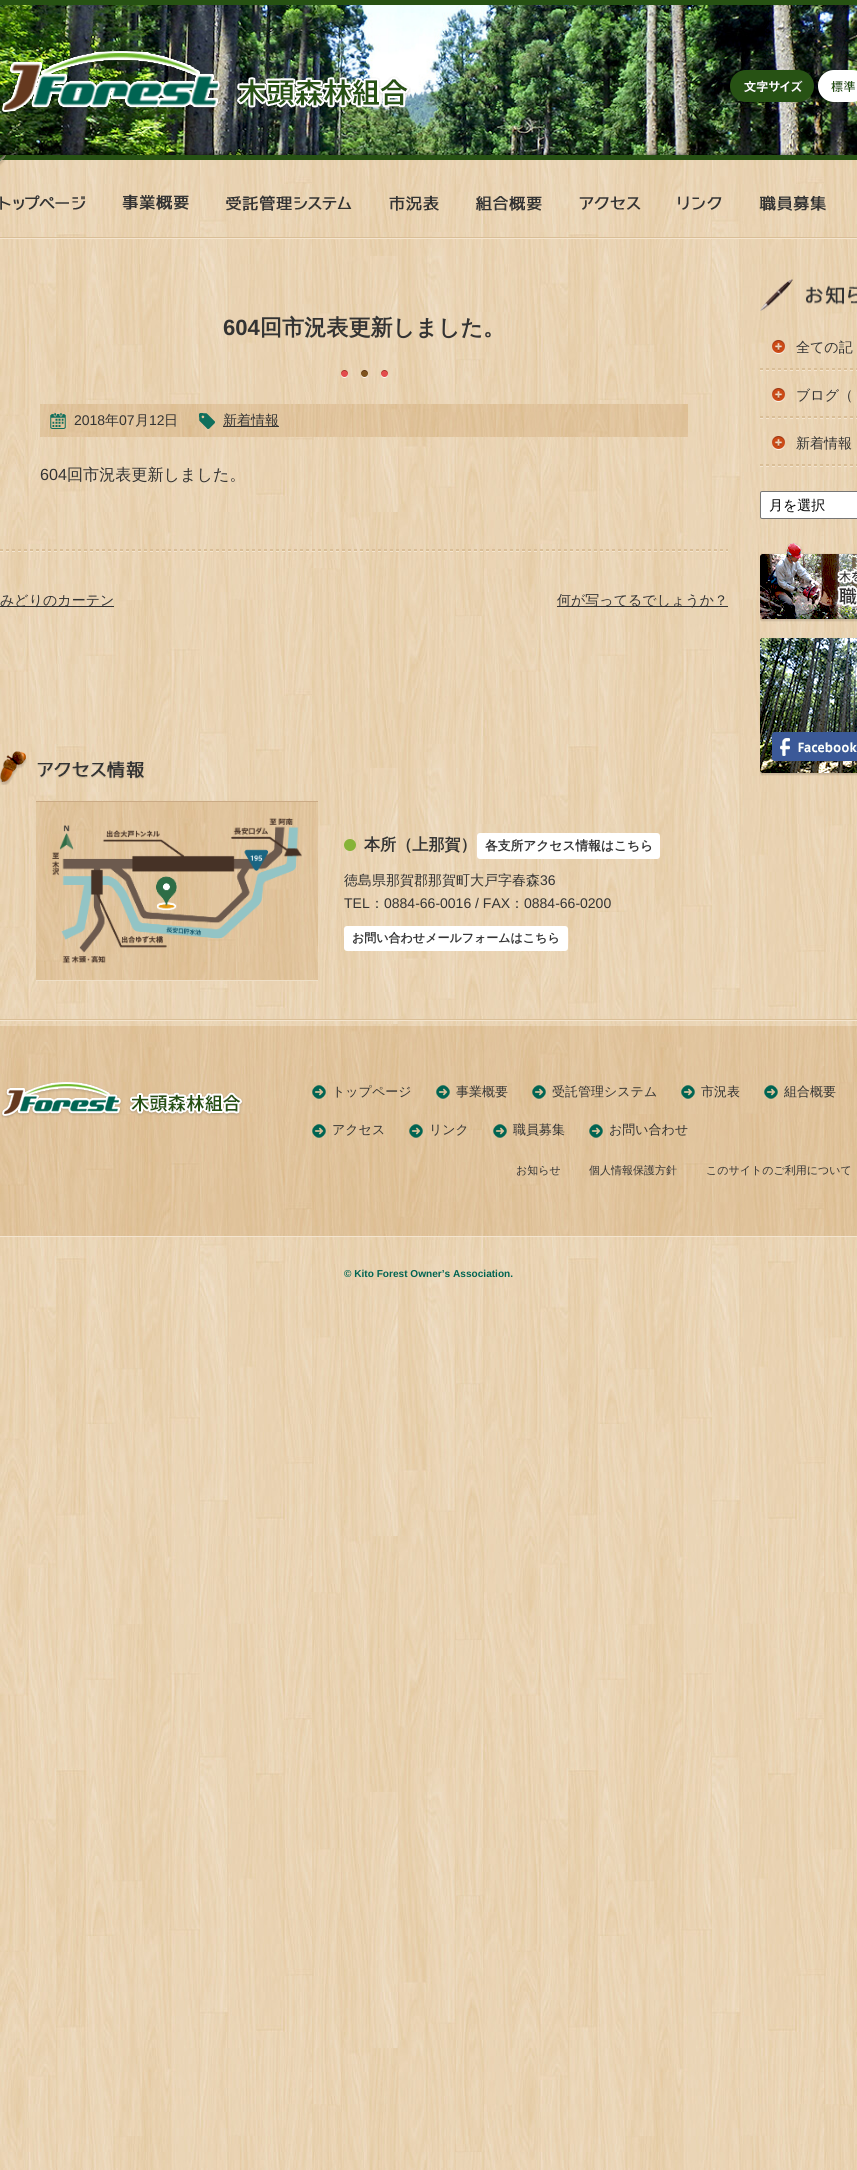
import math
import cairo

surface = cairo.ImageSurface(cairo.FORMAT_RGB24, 857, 2170)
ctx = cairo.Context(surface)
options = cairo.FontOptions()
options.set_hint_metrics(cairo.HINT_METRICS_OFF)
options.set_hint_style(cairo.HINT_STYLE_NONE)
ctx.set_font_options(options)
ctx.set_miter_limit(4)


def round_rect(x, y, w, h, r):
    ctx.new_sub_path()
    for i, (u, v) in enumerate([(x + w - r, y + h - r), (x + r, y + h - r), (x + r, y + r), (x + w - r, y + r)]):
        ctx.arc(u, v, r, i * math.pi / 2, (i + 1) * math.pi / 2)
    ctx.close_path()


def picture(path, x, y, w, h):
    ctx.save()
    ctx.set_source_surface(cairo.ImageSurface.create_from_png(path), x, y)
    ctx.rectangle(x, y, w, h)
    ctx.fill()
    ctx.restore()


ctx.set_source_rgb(1, 1, 1)
ctx.paint()
picture("img1.png", 0, 160, 857, 2010)
ctx.set_source_rgb(0.153, 0.322, 0.078)
ctx.rectangle(0, 0, 857, 5)
ctx.fill()
picture("img2.png", 0, 5, 857, 150)
picture("img3.png", 2, 51, 409, 63)
picture("img4.png", 730, 70, 84, 32)
picture("img5.png", 818, 70, 39, 32)
picture("img6.png", 0, 151, 857, 9)
picture("img7.png", 0, 155, 6, 11)
picture("img8.png", 0, 195, 86, 15)
picture("img9.png", 122, 194, 67, 16)
picture("img10.png", 226, 195, 126, 16)
picture("img11.png", 389, 195, 50, 16)
picture("img12.png", 476, 196, 66, 15)
picture("img13.png", 579, 196, 62, 14)
picture("img14.png", 678, 196, 44, 14)
picture("img15.png", 759, 195, 67, 16)
picture("img16.png", 0, 237, 857, 2)
picture("img16.png", 0, 1019, 857, 2)
picture("img17.png", 341, 370, 47, 8)
ctx.select_font_face("Liberation Sans", cairo.FONT_SLANT_NORMAL, cairo.FONT_WEIGHT_BOLD)
ctx.set_font_size(22.1)
ctx.set_source_rgb(0.2, 0.2, 0.2)
ctx.move_to(223, 335)
ctx.show_text("604")
ctx.select_font_face("WenQuanYi Zen Hei", cairo.FONT_SLANT_NORMAL, cairo.FONT_WEIGHT_BOLD)
ctx.move_to(260, 335)
ctx.show_text("回市況表更新しました。")
picture("img18.png", 40, 404, 648, 33)
picture("img19.png", 50, 413, 16, 16)
ctx.select_font_face("Liberation Sans")
ctx.set_font_size(14)
ctx.move_to(74, 425)
ctx.show_text("2018")
ctx.select_font_face("WenQuanYi Zen Hei Medium")
ctx.move_to(105, 425)
ctx.show_text("年")
ctx.select_font_face("Liberation Sans")
ctx.move_to(119, 425)
ctx.show_text("07")
ctx.select_font_face("WenQuanYi Zen Hei Medium")
ctx.move_to(135, 425)
ctx.show_text("月")
ctx.select_font_face("Liberation Sans")
ctx.move_to(149, 425)
ctx.show_text("12")
ctx.select_font_face("WenQuanYi Zen Hei Medium")
ctx.move_to(164, 425)
ctx.show_text("日")
picture("img20.png", 199, 413, 16, 16)
ctx.rectangle(223, 426, 56, 1)
ctx.fill()
ctx.move_to(223, 425)
ctx.show_text("新着情報")
ctx.select_font_face("Liberation Sans")
ctx.set_font_size(16.1)
ctx.move_to(40, 480)
ctx.show_text("604")
ctx.select_font_face("WenQuanYi Zen Hei Medium")
ctx.move_to(67, 480)
ctx.show_text("回市況表更新しました。")
picture("img21.png", 0, 549, 728, 3)
ctx.rectangle(0, 606, 114, 1)
ctx.fill()
ctx.set_font_size(14)
ctx.move_to(0, 605)
ctx.show_text("みどりのカーテン")
ctx.rectangle(557, 606, 171, 1)
ctx.fill()
ctx.move_to(557, 605)
ctx.show_text("何が写ってるでしょうか？")
picture("img22.png", 0, 751, 144, 34)
picture("img23.png", 36, 802, 282, 178)
ctx.set_source_rgb(0.792, 0.667, 0.522)
ctx.rectangle(36, 801, 282, 1)
ctx.fill()
ctx.set_source_rgb(0.937, 0.878, 0.784)
ctx.rectangle(36, 980, 282, 1)
ctx.fill()
picture("img24.png", 52, 818, 250, 146)
picture("img25.png", 344, 839, 12, 12)
ctx.select_font_face("WenQuanYi Zen Hei", cairo.FONT_SLANT_NORMAL, cairo.FONT_WEIGHT_BOLD)
ctx.set_font_size(16.1)
ctx.set_source_rgb(0.2, 0.2, 0.2)
ctx.move_to(364, 850)
ctx.show_text("本所（上那賀）")
ctx.set_source_rgb(1, 1, 1)
round_rect(477, 833, 183, 26, 3)
ctx.fill()
ctx.set_font_size(12.75)
ctx.set_source_rgb(0.2, 0.2, 0.2)
ctx.move_to(485, 850)
ctx.show_text("各支所アクセス情報はこちら")
ctx.select_font_face("WenQuanYi Zen Hei Medium")
ctx.set_font_size(14)
ctx.move_to(344, 885)
ctx.show_text("徳島県那賀郡那賀町大戸字春森")
ctx.select_font_face("Liberation Sans")
ctx.move_to(540, 885)
ctx.show_text("36")
ctx.move_to(344, 908)
ctx.show_text("TEL")
ctx.select_font_face("WenQuanYi Zen Hei Medium")
ctx.move_to(370, 908)
ctx.show_text("：")
ctx.select_font_face("Liberation Sans")
ctx.move_to(384, 908)
ctx.show_text("0884-66-0016 / FAX")
ctx.select_font_face("WenQuanYi Zen Hei Medium")
ctx.move_to(510, 908)
ctx.show_text("：")
ctx.select_font_face("Liberation Sans")
ctx.move_to(524, 908)
ctx.show_text("0884-66-0200")
ctx.set_source_rgb(1, 1, 1)
round_rect(344, 926, 224, 25, 3)
ctx.fill()
ctx.select_font_face("WenQuanYi Zen Hei", cairo.FONT_SLANT_NORMAL, cairo.FONT_WEIGHT_BOLD)
ctx.set_font_size(12)
ctx.set_source_rgb(0.2, 0.2, 0.2)
ctx.move_to(352, 942)
ctx.show_text("お問い合わせメールフォームはこちら")
picture("img26.png", 760, 279, 97, 32)
picture("img27.png", 760, 368, 97, 3)
picture("img28.png", 772, 340, 13, 14)
ctx.select_font_face("WenQuanYi Zen Hei Medium")
ctx.set_font_size(14)
ctx.move_to(796, 352)
ctx.show_text("全ての記")
picture("img29.png", 760, 416, 97, 3)
picture("img30.png", 772, 388, 13, 14)
ctx.move_to(796, 400)
ctx.show_text("ブログ（")
picture("img31.png", 760, 464, 97, 3)
picture("img32.png", 772, 436, 13, 14)
ctx.move_to(796, 448)
ctx.show_text("新着情報")
ctx.set_source_rgb(1, 1, 1)
round_rect(760.5, 491.5, 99, 27, 1.5)
ctx.fill_preserve()
ctx.set_source_rgb(0.463, 0.463, 0.463)
ctx.set_line_width(1)
ctx.stroke()
ctx.set_source_rgb(0, 0, 0)
ctx.move_to(769, 510)
ctx.show_text("月を選択")
picture("img33.png", 760, 543, 97, 79)
picture("img34.png", 760, 638, 97, 138)
picture("img35.png", 0, 1026, 857, 210)
ctx.set_source_rgb(0.957, 0.898, 0.812)
ctx.rectangle(0, 1236, 857, 1)
ctx.fill()
picture("img36.png", 1, 1082, 242, 36)
picture("img37.png", 312, 1085, 14, 14)
ctx.set_font_size(13)
ctx.set_source_rgb(0.2, 0.2, 0.2)
ctx.move_to(332, 1096)
ctx.show_text("トップページ")
picture("img38.png", 436, 1085, 14, 14)
ctx.move_to(456, 1096)
ctx.show_text("事業概要")
picture("img39.png", 532, 1085, 14, 14)
ctx.move_to(552, 1096)
ctx.show_text("受託管理システム")
picture("img40.png", 681, 1085, 14, 14)
ctx.move_to(701, 1096)
ctx.show_text("市況表")
picture("img41.png", 764, 1085, 14, 14)
ctx.move_to(784, 1096)
ctx.show_text("組合概要")
picture("img42.png", 312, 1124, 14, 14)
ctx.move_to(332, 1134)
ctx.show_text("アクセス")
picture("img43.png", 409, 1124, 14, 14)
ctx.move_to(429, 1134)
ctx.show_text("リンク")
picture("img44.png", 493, 1124, 14, 14)
ctx.move_to(513, 1134)
ctx.show_text("職員募集")
picture("img45.png", 589, 1124, 14, 14)
ctx.move_to(609, 1134)
ctx.show_text("お問い合わせ")
ctx.set_font_size(11)
ctx.move_to(516, 1174)
ctx.show_text("お知らせ")
ctx.move_to(589, 1174)
ctx.show_text("個人情報保護方針")
ctx.move_to(706, 1174)
ctx.show_text("このサイトのご利用について")
ctx.select_font_face("Liberation Sans", cairo.FONT_SLANT_NORMAL, cairo.FONT_WEIGHT_BOLD)
ctx.set_font_size(10.1)
ctx.set_source_rgb(0, 0.392, 0.322)
ctx.move_to(344, 1277)
ctx.show_text("© Kito Forest Owner’s Association.")
surface.write_to_png("page.png")
